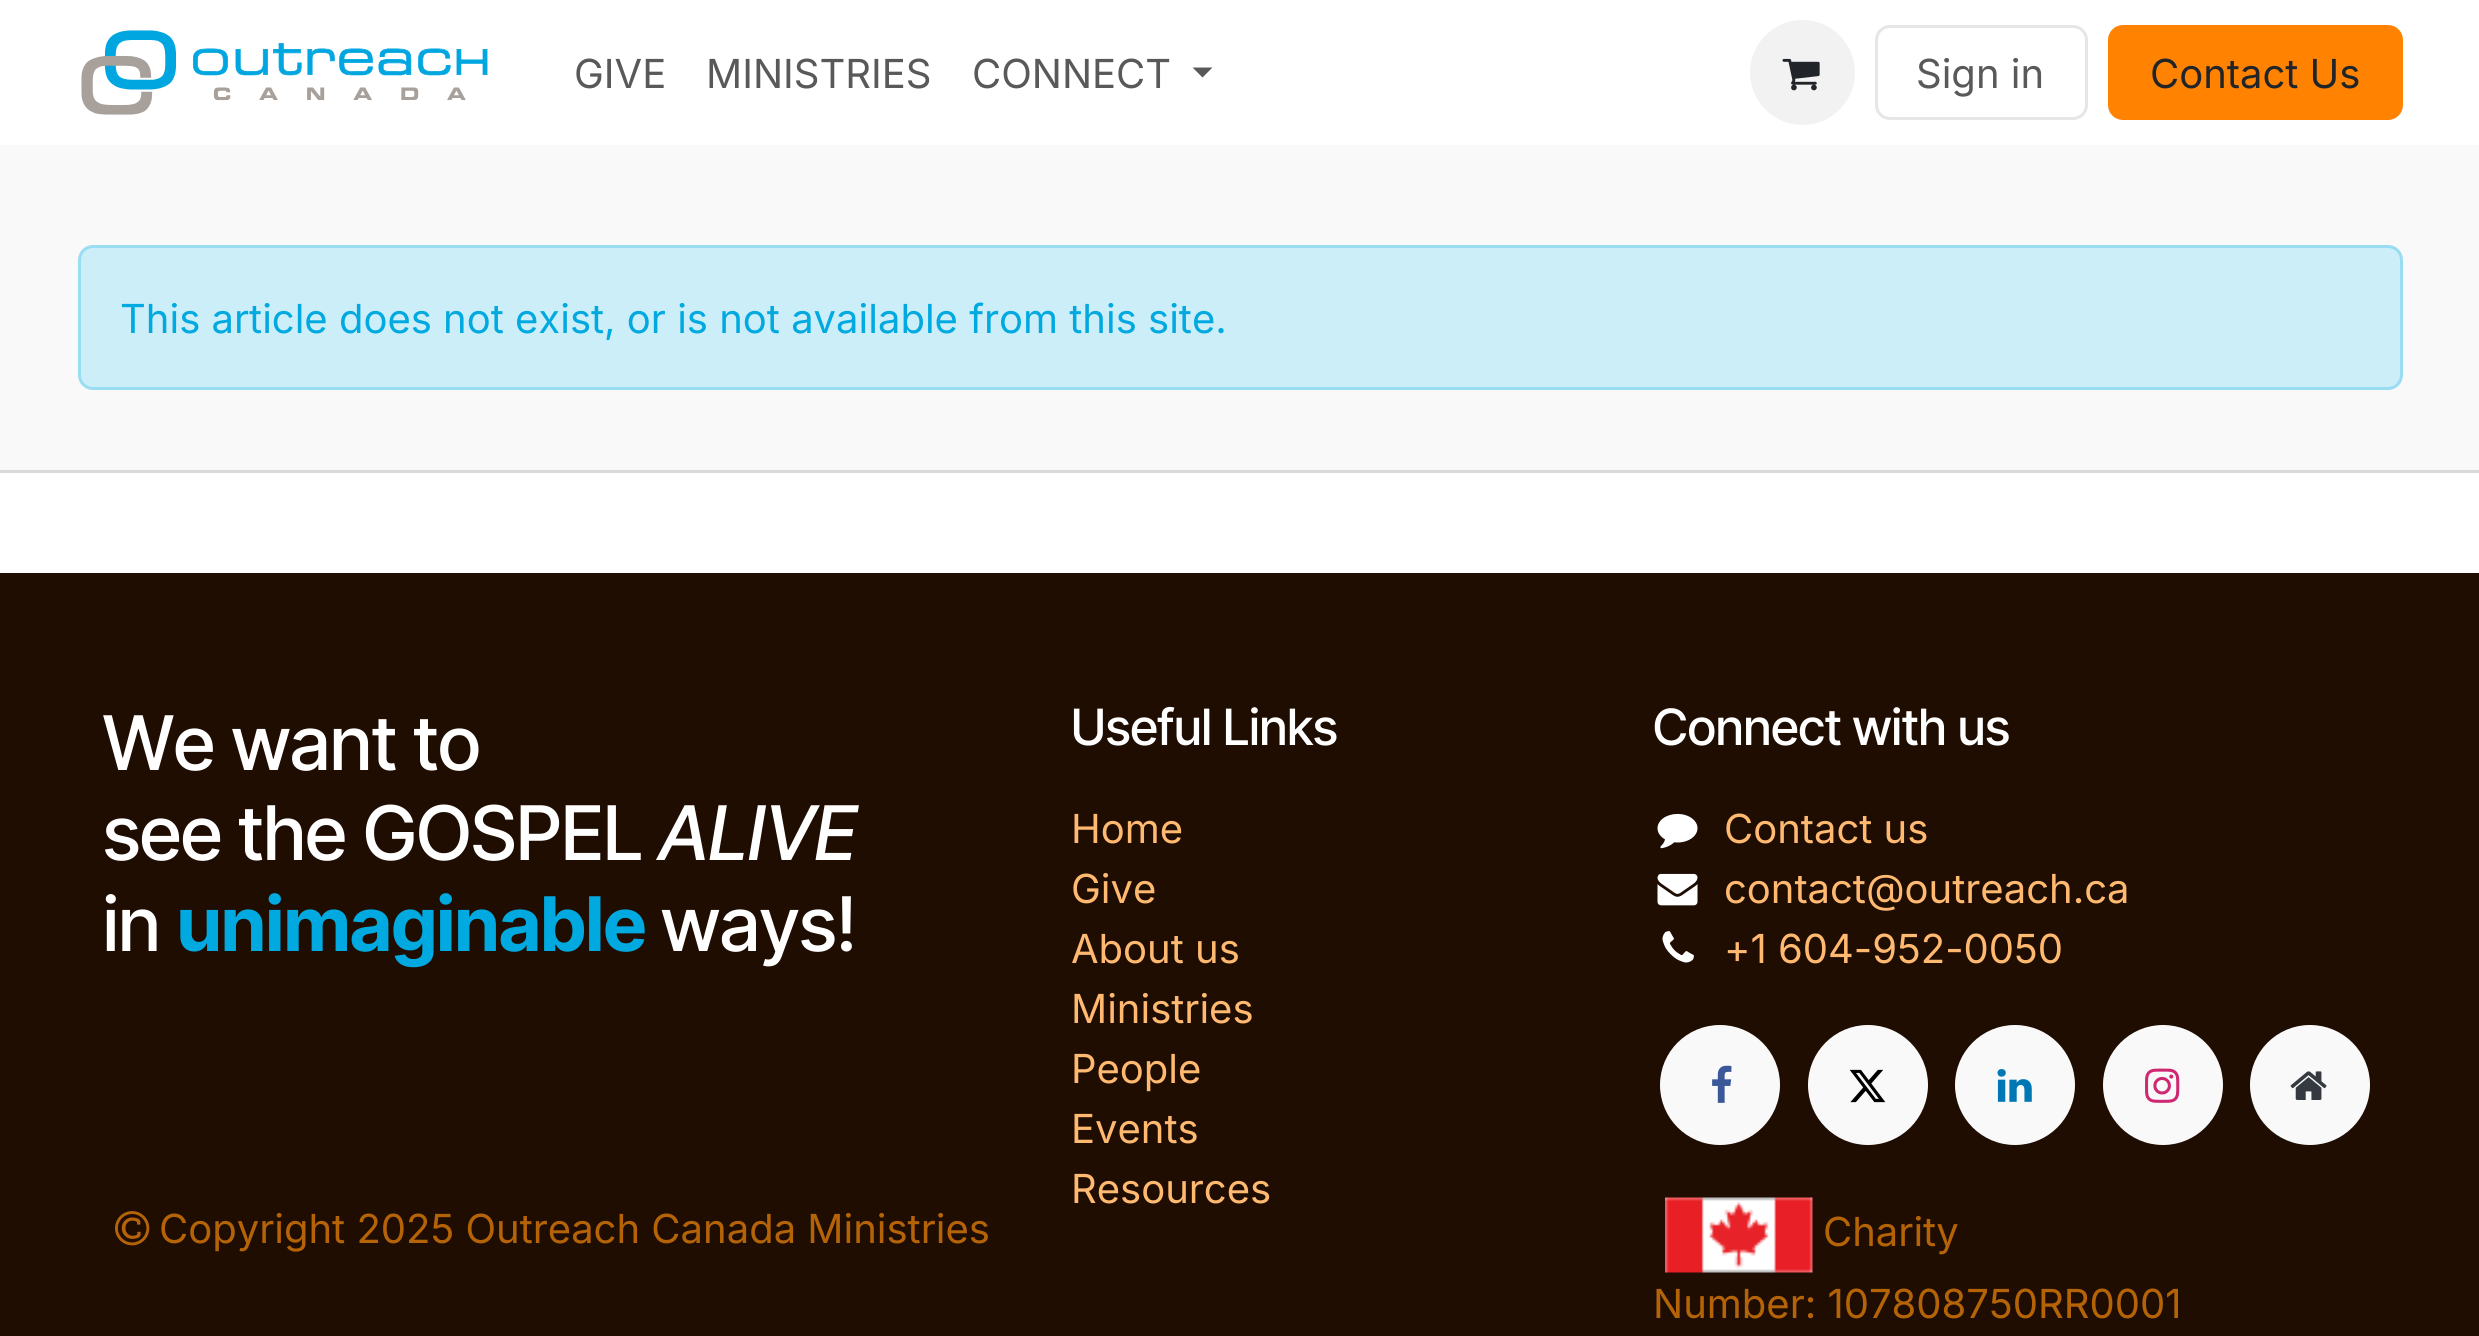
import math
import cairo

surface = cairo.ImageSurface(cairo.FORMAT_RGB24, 2479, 1336)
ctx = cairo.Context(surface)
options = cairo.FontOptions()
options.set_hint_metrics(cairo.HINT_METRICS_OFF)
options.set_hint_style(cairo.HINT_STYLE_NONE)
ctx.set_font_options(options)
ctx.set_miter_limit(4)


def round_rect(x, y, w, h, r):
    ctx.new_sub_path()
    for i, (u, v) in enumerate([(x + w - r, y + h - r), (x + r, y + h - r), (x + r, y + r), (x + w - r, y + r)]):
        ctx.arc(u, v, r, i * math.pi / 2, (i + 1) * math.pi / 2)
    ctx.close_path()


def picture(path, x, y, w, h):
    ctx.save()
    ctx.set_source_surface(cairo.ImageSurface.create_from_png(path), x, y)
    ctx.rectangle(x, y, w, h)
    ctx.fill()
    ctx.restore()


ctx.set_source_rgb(1, 1, 1)
ctx.paint()
picture("img1.png", 81, 30, 407, 85)
ctx.select_font_face("Inter")
ctx.set_font_size(40)
ctx.set_source_rgb(0.349, 0.349, 0.349)
ctx.move_to(574, 88)
ctx.show_text("GIVE")
ctx.move_to(706, 88)
ctx.show_text("MINISTRIES")
ctx.move_to(972, 88)
ctx.show_text("CONNECT")
ctx.new_path()
ctx.move_to(1192.5, 67.5)
ctx.line_to(1212.5, 67.5)
ctx.line_to(1202.5, 77.5)
ctx.close_path()
ctx.fill()
ctx.set_source_rgb(0.949, 0.949, 0.949)
ctx.arc(1802.5, 72.5, 52.5, 0, 2 * math.pi)
ctx.fill()
picture("img2.png", 1782, 58, 38, 33)
round_rect(1876.5, 26.5, 210, 92, 13.5)
ctx.set_source_rgb(0.902, 0.902, 0.902)
ctx.set_line_width(3)
ctx.stroke()
ctx.set_source_rgb(0.349, 0.349, 0.349)
ctx.move_to(1916, 88)
ctx.show_text("Sign in")
ctx.set_source_rgb(1, 0.51, 0)
round_rect(2109.5, 26.5, 292, 92, 13.5)
ctx.fill_preserve()
ctx.stroke()
ctx.set_source_rgb(0.129, 0.145, 0.161)
ctx.move_to(2150, 88)
ctx.show_text("Contact Us")
ctx.set_source_rgb(0.973, 0.976, 0.98)
ctx.rectangle(0, 145, 2479, 325)
ctx.fill()
ctx.set_source_rgb(0.8, 0.933, 0.976)
round_rect(79.5, 246.5, 2322, 142, 13.5)
ctx.fill_preserve()
ctx.set_source_rgb(0.6, 0.867, 0.953)
ctx.stroke()
ctx.set_source_rgb(0, 0.663, 0.878)
ctx.move_to(120, 333)
ctx.show_text("This article does not exist, or is not available from this site.")
ctx.set_source_rgb(0.847, 0.851, 0.859)
ctx.rectangle(0, 470, 2479, 3)
ctx.fill()
ctx.set_source_rgb(0.122, 0.051, 0.008)
ctx.rectangle(0, 573, 2479, 763)
ctx.fill()
ctx.select_font_face("Inter Tight Medium")
ctx.set_font_size(75.25)
ctx.set_source_rgb(1, 1, 1)
ctx.move_to(103, 770)
ctx.show_text("We want to")
ctx.move_to(103, 860)
ctx.show_text("see the GOSPEL")
ctx.select_font_face("Inter Tight Medium", cairo.FONT_SLANT_ITALIC)
ctx.move_to(659, 860)
ctx.show_text("ALIVE")
ctx.select_font_face("Inter Tight Medium")
ctx.move_to(103, 951)
ctx.show_text("in")
ctx.select_font_face("Inter Tight", cairo.FONT_SLANT_NORMAL, cairo.FONT_WEIGHT_BOLD)
ctx.set_source_rgb(0, 0.663, 0.878)
ctx.move_to(177, 951)
ctx.show_text("unimaginable")
ctx.select_font_face("Inter Tight Medium")
ctx.set_source_rgb(1, 1, 1)
ctx.move_to(661, 951)
ctx.show_text("ways!")
ctx.set_font_size(50)
ctx.move_to(1071, 745)
ctx.show_text("Useful Links")
ctx.select_font_face("Inter")
ctx.set_font_size(40)
ctx.set_source_rgb(1, 0.725, 0.439)
ctx.move_to(1071, 843)
ctx.show_text("Home")
ctx.move_to(1071, 903)
ctx.show_text("Give")
ctx.move_to(1071, 963)
ctx.show_text("About us")
ctx.move_to(1071, 1023)
ctx.show_text("Ministries")
ctx.move_to(1071, 1083)
ctx.show_text("People")
ctx.move_to(1071, 1143)
ctx.show_text("Events")
ctx.move_to(1071, 1203)
ctx.show_text("Resources")
ctx.select_font_face("Inter Tight Medium")
ctx.set_font_size(50)
ctx.set_source_rgb(1, 1, 1)
ctx.move_to(1653, 745)
ctx.show_text("Connect with us")
picture("img3.png", 1657, 813, 41, 36)
ctx.select_font_face("Inter")
ctx.set_font_size(40)
ctx.set_source_rgb(1, 0.725, 0.439)
ctx.move_to(1724, 843)
ctx.show_text("Contact us")
picture("img4.png", 1657, 873, 41, 33)
ctx.move_to(1724, 903)
ctx.show_text("contact@outreach.ca")
picture("img5.png", 1662, 931, 32, 32)
ctx.move_to(1724, 963)
ctx.show_text("+1 604-952-0050")
ctx.set_source_rgb(0.973, 0.976, 0.98)
ctx.new_path()
ctx.arc(1720, 1085, 60, 0, 2 * math.pi)
ctx.fill()
picture("img6.png", 1712, 1065, 20, 38)
ctx.arc(1868, 1085, 60, 0, 2 * math.pi)
ctx.fill()
picture("img7.png", 1849, 1069, 37, 34)
ctx.arc(2015, 1085, 60, 0, 2 * math.pi)
ctx.fill()
picture("img8.png", 1997, 1069, 35, 33)
ctx.arc(2163, 1085, 60, 0, 2 * math.pi)
ctx.fill()
picture("img9.png", 2145, 1068, 35, 35)
ctx.arc(2310, 1085, 60, 0, 2 * math.pi)
ctx.fill()
picture("img10.png", 2290, 1071, 37, 29)
picture("img11.png", 115, 1211, 35, 35)
ctx.set_source_rgb(0.71, 0.388, 0.031)
ctx.move_to(159, 1243)
ctx.show_text("Copyright 2025 Outreach Canada Ministries")
picture("img12.png", 1665, 1197, 148, 76)
ctx.move_to(1823, 1246)
ctx.show_text("Charity")
ctx.move_to(1653, 1318)
ctx.show_text("Number: 107808750RR0001")
surface.write_to_png("page.png")
